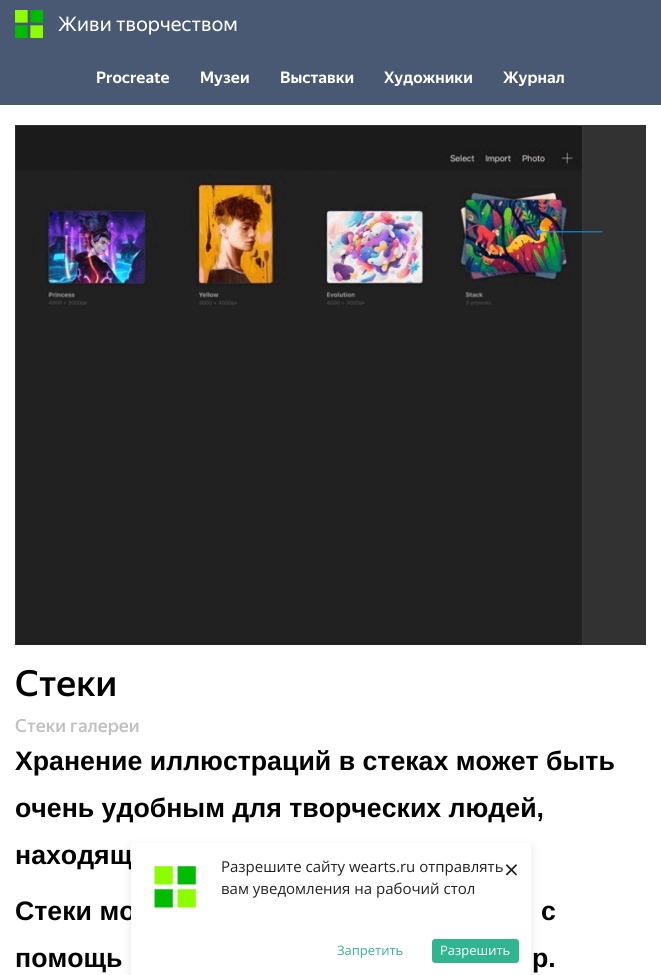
import math
import cairo

surface = cairo.ImageSurface(cairo.FORMAT_RGB24, 661, 975)
ctx = cairo.Context(surface)
options = cairo.FontOptions()
options.set_hint_metrics(cairo.HINT_METRICS_OFF)
options.set_hint_style(cairo.HINT_STYLE_NONE)
ctx.set_font_options(options)
ctx.set_miter_limit(4)


def round_rect(x, y, w, h, r):
    ctx.new_sub_path()
    for i, (u, v) in enumerate([(x + w - r, y + h - r), (x + r, y + h - r), (x + r, y + r), (x + w - r, y + r)]):
        ctx.arc(u, v, r, i * math.pi / 2, (i + 1) * math.pi / 2)
    ctx.close_path()


def shadow(x, y, w, h, r, blur, alpha):
    ctx.push_group_with_content(cairo.CONTENT_ALPHA)
    ctx.set_operator(cairo.OPERATOR_SOURCE)
    for i in range(15, -16, -2):
        e = blur * i / 6
        if min(w, h) + 2 * e > 0:
            ctx.set_source_rgba(0, 0, 0, alpha * math.erfc((i - 1) / 8.5) / 2)
            round_rect(x - e, y - e, w + 2 * e, h + 2 * e, max(0, min(r + e + blur * .6, min(w, h) / 2 + e)))
            ctx.fill()
    ctx.mask(ctx.pop_group())


def picture(path, x, y, w, h):
    ctx.save()
    ctx.set_source_surface(cairo.ImageSurface.create_from_png(path), x, y)
    ctx.rectangle(x, y, w, h)
    ctx.fill()
    ctx.restore()


ctx.set_source_rgb(1, 1, 1)
ctx.paint()
ctx.set_source_rgb(0.286, 0.349, 0.451)
ctx.rectangle(0, 0, 661, 105)
ctx.fill()
picture("img1.png", 15, 10, 28, 28)
ctx.select_font_face("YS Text")
ctx.set_font_size(20)
ctx.set_source_rgb(1, 1, 1)
ctx.move_to(58, 31)
ctx.show_text("Живи творчеством")
ctx.select_font_face("YS Text", cairo.FONT_SLANT_NORMAL, cairo.FONT_WEIGHT_BOLD)
ctx.set_font_size(16)
ctx.move_to(96, 83)
ctx.show_text("Procreate")
ctx.move_to(200, 83)
ctx.show_text("Музеи")
ctx.move_to(280, 83)
ctx.show_text("Выставки")
ctx.move_to(384, 83)
ctx.show_text("Художники")
ctx.move_to(503, 83)
ctx.show_text("Журнал")
picture("img2.png", 15, 125, 631, 520)
ctx.select_font_face("YS Text Medium")
ctx.set_font_size(36)
ctx.set_source_rgb(0, 0, 0)
ctx.move_to(15, 696)
ctx.show_text("Стеки")
ctx.set_font_size(18)
ctx.set_source_rgb(0.753, 0.753, 0.753)
ctx.move_to(15, 732)
ctx.show_text("Стеки галереи")
ctx.select_font_face("Liberation Sans", cairo.FONT_SLANT_NORMAL, cairo.FONT_WEIGHT_BOLD)
ctx.set_font_size(26.7)
ctx.set_source_rgb(0, 0, 0)
ctx.move_to(15, 770)
ctx.show_text("Хранение иллюстраций в стеках может быть")
ctx.move_to(15, 817)
ctx.show_text("очень удобным для творческих людей,")
ctx.move_to(15, 864)
ctx.show_text("находящ")
ctx.move_to(15, 920)
ctx.show_text("Стеки мо")
ctx.move_to(541, 920)
ctx.show_text("с")
ctx.move_to(15, 967)
ctx.show_text("помощь")
ctx.move_to(532, 967)
ctx.show_text("р.")
ctx.set_source_rgb(0, 0, 0)
shadow(131, 847, 400, 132, 0, 5, 0.1)
ctx.set_source_rgb(1, 1, 1)
ctx.rectangle(131, 843, 400, 132)
ctx.fill()
picture("img3.png", 154, 866, 42, 42)
ctx.select_font_face("Open Sans")
ctx.set_font_size(15)
ctx.set_source_rgb(0.133, 0.133, 0.133)
ctx.move_to(221, 872)
ctx.show_text("Разрешите сайту wearts.ru отправлять")
ctx.move_to(221, 894)
ctx.show_text("вам уведомления на рабочий стол")
ctx.set_font_size(13)
ctx.set_source_rgb(0.192, 0.71, 0.557)
ctx.move_to(337, 955)
ctx.show_text("Запретить")
round_rect(432, 939, 87, 24, 3)
ctx.fill()
ctx.set_source_rgb(1, 1, 1)
ctx.move_to(440, 955)
ctx.show_text("Разрешить")
ctx.set_font_size(26)
ctx.set_source_rgb(0.133, 0.133, 0.133)
ctx.move_to(504, 879)
ctx.show_text("×")
surface.write_to_png("page.png")
